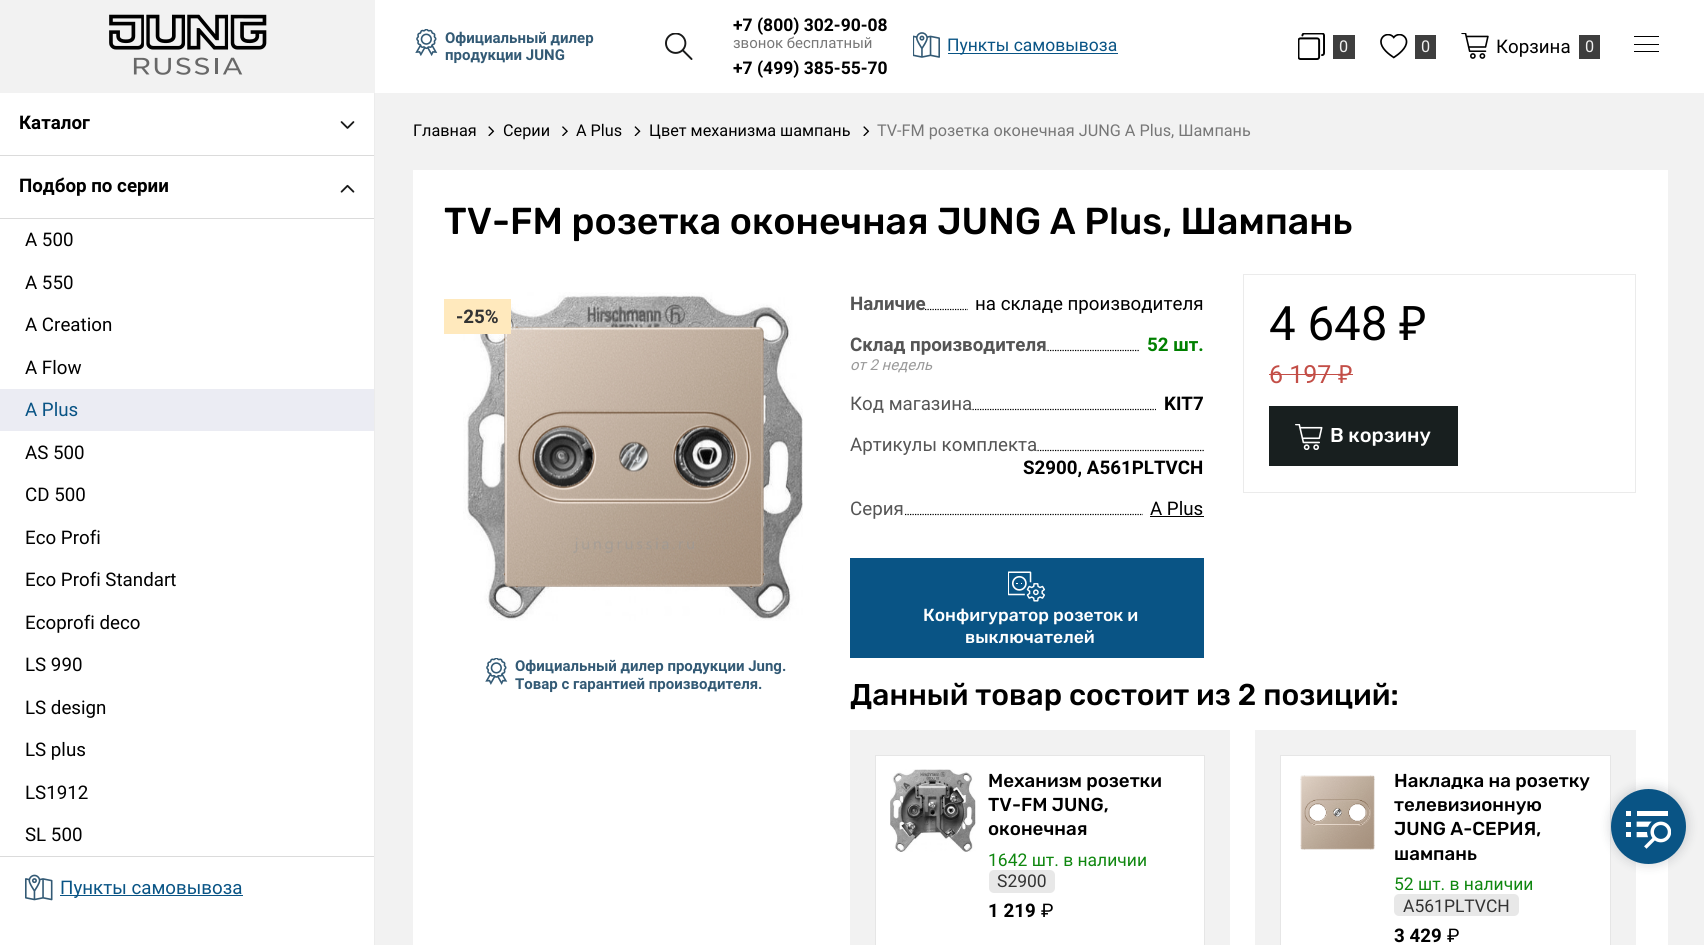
import math
import cairo

surface = cairo.ImageSurface(cairo.FORMAT_RGB24, 1704, 945)
ctx = cairo.Context(surface)
options = cairo.FontOptions()
options.set_hint_metrics(cairo.HINT_METRICS_OFF)
options.set_hint_style(cairo.HINT_STYLE_NONE)
ctx.set_font_options(options)
ctx.set_miter_limit(4)


def round_rect(x, y, w, h, r):
    ctx.new_sub_path()
    for i, (u, v) in enumerate([(x + w - r, y + h - r), (x + r, y + h - r), (x + r, y + r), (x + w - r, y + r)]):
        ctx.arc(u, v, r, i * math.pi / 2, (i + 1) * math.pi / 2)
    ctx.close_path()


def shadow(x, y, w, h, r, blur, alpha):
    ctx.push_group_with_content(cairo.CONTENT_ALPHA)
    ctx.set_operator(cairo.OPERATOR_SOURCE)
    for i in range(15, -16, -2):
        e = blur * i / 6
        if min(w, h) + 2 * e > 0:
            ctx.set_source_rgba(0, 0, 0, alpha * math.erfc((i - 1) / 8.5) / 2)
            round_rect(x - e, y - e, w + 2 * e, h + 2 * e, max(0, min(r + e + blur * .6, min(w, h) / 2 + e)))
            ctx.fill()
    ctx.mask(ctx.pop_group())


def picture(path, x, y, w, h):
    ctx.save()
    ctx.set_source_surface(cairo.ImageSurface.create_from_png(path), x, y)
    ctx.rectangle(x, y, w, h)
    ctx.fill()
    ctx.restore()


ctx.set_source_rgb(0.949, 0.949, 0.949)
ctx.paint()
picture("img1.png", 109, 14, 158, 61)
ctx.set_source_rgb(1, 1, 1)
ctx.rectangle(375, 0, 1329, 93)
ctx.fill()
picture("img2.png", 415, 29, 23, 27)
ctx.select_font_face("Roboto", cairo.FONT_SLANT_NORMAL, cairo.FONT_WEIGHT_BOLD)
ctx.set_font_size(15)
ctx.set_source_rgb(0.2, 0.353, 0.459)
ctx.move_to(445, 43)
ctx.show_text("Официальный дилер")
ctx.move_to(445, 60)
ctx.show_text("продукции JUNG")
picture("img3.png", 665, 33, 28, 27)
ctx.set_font_size(17.5)
ctx.set_source_rgb(0, 0, 0)
ctx.move_to(733, 31)
ctx.show_text("+7 (800) 302-90-08")
ctx.select_font_face("Roboto")
ctx.set_font_size(15)
ctx.set_source_rgb(0.467, 0.467, 0.467)
ctx.move_to(733, 48)
ctx.show_text("звонок бесплатный")
ctx.select_font_face("Roboto", cairo.FONT_SLANT_NORMAL, cairo.FONT_WEIGHT_BOLD)
ctx.set_font_size(17.5)
ctx.set_source_rgb(0, 0, 0)
ctx.move_to(733, 74)
ctx.show_text("+7 (499) 385-55-70")
picture("img4.png", 913, 32, 27, 26)
ctx.set_source_rgb(0.039, 0.329, 0.522)
ctx.rectangle(948, 53, 170, 1)
ctx.fill()
ctx.select_font_face("Roboto")
ctx.move_to(947, 51)
ctx.show_text("Пункты самовывоза")
picture("img5.png", 1298, 33, 27, 27)
ctx.set_source_rgb(0.243, 0.243, 0.243)
ctx.rectangle(1333, 35, 22, 24)
ctx.fill()
ctx.set_font_size(16.25)
ctx.set_source_rgb(0.937, 0.937, 0.937)
ctx.move_to(1339, 52)
ctx.show_text("0")
picture("img6.png", 1380, 34, 28, 25)
ctx.set_source_rgb(0.243, 0.243, 0.243)
ctx.rectangle(1415, 35, 21, 24)
ctx.fill()
ctx.set_source_rgb(0.937, 0.937, 0.937)
ctx.move_to(1421, 52)
ctx.show_text("0")
picture("img7.png", 1461, 33, 28, 26)
ctx.set_font_size(18.75)
ctx.set_source_rgb(0, 0, 0)
ctx.move_to(1496, 53)
ctx.show_text("Корзина")
ctx.set_source_rgb(0.243, 0.243, 0.243)
ctx.rectangle(1579, 35, 21, 24)
ctx.fill()
ctx.set_font_size(16.25)
ctx.set_source_rgb(0.937, 0.937, 0.937)
ctx.move_to(1585, 52)
ctx.show_text("0")
ctx.set_source_rgb(0, 0, 0)
ctx.rectangle(1634, 44, 25, 1)
ctx.fill()
ctx.rectangle(1634, 36, 25, 1)
ctx.fill()
ctx.rectangle(1634, 51, 25, 1)
ctx.fill()
ctx.move_to(413, 136)
ctx.show_text("Главная")
picture("img8.png", 488, 126, 7, 10)
ctx.move_to(503, 136)
ctx.show_text("Серии")
picture("img9.png", 562, 126, 6, 10)
ctx.move_to(576, 136)
ctx.show_text("A Plus")
picture("img10.png", 634, 126, 7, 10)
ctx.move_to(649, 136)
ctx.show_text("Цвет механизма шампань")
picture("img8.png", 863, 126, 7, 10)
ctx.set_source_rgb(0.467, 0.467, 0.467)
ctx.move_to(877, 136)
ctx.show_text("TV-FM розетка оконечная JUNG A Plus, Шампань")
ctx.set_source_rgb(1, 1, 1)
ctx.rectangle(413, 170, 1255, 775)
ctx.fill()
ctx.select_font_face("Rubik Light")
ctx.set_font_size(37.5)
ctx.set_source_rgb(0, 0, 0)
ctx.move_to(444, 234)
ctx.show_text("TV-FM розетка оконечная JUNG A Plus, Шампань")
picture("img11.png", 463, 292, 340, 329)
ctx.set_source_rgb(1, 0.914, 0.741)
ctx.rectangle(444, 299, 67, 35)
ctx.fill()
ctx.select_font_face("Roboto", cairo.FONT_SLANT_NORMAL, cairo.FONT_WEIGHT_BOLD)
ctx.set_font_size(18.75)
ctx.set_source_rgb(0.2, 0.2, 0.2)
ctx.move_to(456, 323)
ctx.show_text("-25%")
picture("img12.png", 485, 658, 23, 27)
ctx.set_font_size(15)
ctx.set_source_rgb(0.2, 0.353, 0.459)
ctx.move_to(515, 671)
ctx.show_text("Официальный дилер продукции Jung.")
ctx.move_to(515, 689)
ctx.show_text("Товар с гарантией производителя.")
ctx.new_path()
ctx.move_to(850, 309.5)
ctx.line_to(1204, 309.5)
ctx.set_source_rgb(0, 0, 0)
ctx.set_line_width(1.2)
ctx.set_dash([1.25, 1.25])
ctx.stroke()
ctx.set_source_rgb(1, 1, 1)
ctx.rectangle(850, 308, 74, 3)
ctx.fill()
ctx.set_font_size(18.75)
ctx.set_source_rgb(0.333, 0.333, 0.333)
ctx.move_to(850, 310)
ctx.show_text("Наличие")
ctx.set_source_rgb(1, 1, 1)
ctx.rectangle(968, 308, 236, 3)
ctx.fill()
ctx.select_font_face("Roboto")
ctx.set_source_rgb(0, 0, 0)
ctx.move_to(975, 310)
ctx.show_text("на складе производителя")
ctx.new_path()
ctx.move_to(850, 350.5)
ctx.line_to(1204, 350.5)
ctx.stroke()
ctx.set_source_rgb(1, 1, 1)
ctx.rectangle(850, 349, 196, 3)
ctx.fill()
ctx.select_font_face("Roboto", cairo.FONT_SLANT_NORMAL, cairo.FONT_WEIGHT_BOLD)
ctx.set_source_rgb(0.333, 0.333, 0.333)
ctx.move_to(850, 351)
ctx.show_text("Склад производителя")
ctx.select_font_face("Roboto", cairo.FONT_SLANT_ITALIC)
ctx.set_font_size(15)
ctx.set_source_rgb(0.6, 0.6, 0.6)
ctx.move_to(850, 370)
ctx.show_text("от 2 недель")
ctx.set_source_rgb(1, 1, 1)
ctx.rectangle(1140, 349, 64, 3)
ctx.fill()
ctx.select_font_face("Roboto", cairo.FONT_SLANT_NORMAL, cairo.FONT_WEIGHT_BOLD)
ctx.set_font_size(18.75)
ctx.set_source_rgb(0, 0.502, 0)
ctx.move_to(1147, 351)
ctx.show_text("52 шт.")
ctx.new_path()
ctx.move_to(850, 409.5)
ctx.line_to(1204, 409.5)
ctx.set_source_rgb(0, 0, 0)
ctx.stroke()
ctx.set_source_rgb(1, 1, 1)
ctx.rectangle(850, 408, 121, 3)
ctx.fill()
ctx.select_font_face("Roboto")
ctx.set_source_rgb(0.333, 0.333, 0.333)
ctx.move_to(850, 410)
ctx.show_text("Код магазина")
ctx.set_source_rgb(1, 1, 1)
ctx.rectangle(1156, 408, 48, 3)
ctx.fill()
ctx.select_font_face("Roboto", cairo.FONT_SLANT_NORMAL, cairo.FONT_WEIGHT_BOLD)
ctx.set_source_rgb(0, 0, 0)
ctx.move_to(1164, 410)
ctx.show_text("KIT7")
ctx.new_path()
ctx.move_to(850, 450.5)
ctx.line_to(1204, 450.5)
ctx.stroke()
ctx.set_source_rgb(1, 1, 1)
ctx.rectangle(850, 449, 186, 3)
ctx.fill()
ctx.select_font_face("Roboto")
ctx.set_source_rgb(0.333, 0.333, 0.333)
ctx.move_to(850, 451)
ctx.show_text("Артикулы комплекта")
ctx.select_font_face("Roboto", cairo.FONT_SLANT_NORMAL, cairo.FONT_WEIGHT_BOLD)
ctx.set_source_rgb(0, 0, 0)
ctx.move_to(1023, 474)
ctx.show_text("S2900, A561PLTVCH")
ctx.new_path()
ctx.move_to(850, 514.5)
ctx.line_to(1204, 514.5)
ctx.stroke()
ctx.set_source_rgb(1, 1, 1)
ctx.rectangle(850, 513, 54, 3)
ctx.fill()
ctx.select_font_face("Roboto")
ctx.set_source_rgb(0.333, 0.333, 0.333)
ctx.move_to(850, 515)
ctx.show_text("Серия")
ctx.set_source_rgb(1, 1, 1)
ctx.rectangle(1143, 513, 61, 3)
ctx.fill()
ctx.set_source_rgb(0, 0, 0)
ctx.move_to(1150, 515)
ctx.show_text("A Plus")
ctx.rectangle(1150, 516, 54, 1)
ctx.fill()
ctx.set_source_rgb(0.039, 0.329, 0.522)
ctx.rectangle(850, 558, 354, 100)
ctx.fill()
picture("img13.png", 1008, 571, 37, 31)
ctx.select_font_face("Rubik Light")
ctx.set_font_size(17.5)
ctx.set_source_rgb(1, 1, 1)
ctx.move_to(923, 621)
ctx.show_text("Конфигуратор розеток и")
ctx.move_to(965, 643)
ctx.show_text("выключателей")
ctx.rectangle(1243.5, 274.5, 392, 218)
ctx.set_source_rgb(0.918, 0.918, 0.918)
ctx.set_line_width(1)
ctx.set_dash([])
ctx.stroke()
ctx.select_font_face("Roboto")
ctx.set_font_size(47.5)
ctx.set_source_rgb(0, 0, 0)
ctx.move_to(1269, 340)
ctx.show_text("4 648")
ctx.select_font_face("Noto Sans")
ctx.move_to(1399, 340)
ctx.show_text("₽")
ctx.select_font_face("Roboto")
ctx.set_font_size(25)
ctx.set_source_rgb(0.765, 0.306, 0.278)
ctx.move_to(1269, 383)
ctx.show_text("6 197")
ctx.select_font_face("Noto Sans")
ctx.move_to(1338, 383)
ctx.show_text("₽")
ctx.rectangle(1269, 374, 84, 1)
ctx.fill()
ctx.set_source_rgb(0.094, 0.122, 0.122)
ctx.rectangle(1269, 406, 189, 60)
ctx.fill()
picture("img14.png", 1295, 424, 28, 26)
ctx.select_font_face("Rubik Light")
ctx.set_font_size(20)
ctx.set_source_rgb(1, 1, 1)
ctx.move_to(1330, 442)
ctx.show_text("В корзину")
ctx.set_font_size(30)
ctx.set_source_rgb(0, 0, 0)
ctx.move_to(850, 705)
ctx.show_text("Данный товар состоит из 2 позиций:")
ctx.set_source_rgb(0.949, 0.949, 0.949)
ctx.rectangle(850, 730, 380, 215)
ctx.fill()
ctx.set_source_rgb(1, 1, 1)
ctx.rectangle(875.5, 755.5, 329, 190)
ctx.fill_preserve()
ctx.set_source_rgb(0.902, 0.902, 0.902)
ctx.stroke()
picture("img15.png", 890, 769, 86, 83)
ctx.set_font_size(18.75)
ctx.set_source_rgb(0, 0, 0)
ctx.move_to(988, 787)
ctx.show_text("Механизм розетки")
ctx.move_to(988, 811)
ctx.show_text("TV-FM JUNG,")
ctx.move_to(988, 835)
ctx.show_text("оконечная")
ctx.select_font_face("Roboto")
ctx.set_font_size(17.5)
ctx.set_source_rgb(0.059, 0.529, 0.059)
ctx.move_to(988, 866)
ctx.show_text("1642 шт. в наличии")
ctx.set_source_rgb(0.91, 0.91, 0.91)
round_rect(989, 870, 66, 23, 5)
ctx.fill()
ctx.set_source_rgb(0.2, 0.2, 0.2)
ctx.move_to(997, 887)
ctx.show_text("S2900")
ctx.select_font_face("Roboto", cairo.FONT_SLANT_NORMAL, cairo.FONT_WEIGHT_BOLD)
ctx.set_font_size(18.75)
ctx.set_source_rgb(0, 0, 0)
ctx.move_to(988, 917)
ctx.show_text("1 219")
ctx.select_font_face("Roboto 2")
ctx.move_to(1041, 917)
ctx.show_text("₽")
ctx.set_source_rgb(0.949, 0.949, 0.949)
ctx.rectangle(1255, 730, 381, 215)
ctx.fill()
ctx.set_source_rgb(1, 1, 1)
ctx.rectangle(1280.5, 755.5, 330, 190)
ctx.fill_preserve()
ctx.set_source_rgb(0.902, 0.902, 0.902)
ctx.stroke()
picture("img16.png", 1300, 775, 75, 75)
ctx.select_font_face("Rubik Light")
ctx.set_source_rgb(0, 0, 0)
ctx.move_to(1394, 787)
ctx.show_text("Накладка на розетку")
ctx.move_to(1394, 811)
ctx.show_text("телевизионную")
ctx.move_to(1394, 835)
ctx.show_text("JUNG А-СЕРИЯ,")
ctx.move_to(1394, 860)
ctx.show_text("шампань")
ctx.select_font_face("Roboto")
ctx.set_font_size(17.5)
ctx.set_source_rgb(0.059, 0.529, 0.059)
ctx.move_to(1394, 890)
ctx.show_text("52 шт. в наличии")
ctx.set_source_rgb(0.91, 0.91, 0.91)
round_rect(1394, 894, 125, 22, 5)
ctx.fill()
ctx.set_source_rgb(0.2, 0.2, 0.2)
ctx.move_to(1403, 912)
ctx.show_text("A561PLTVCH")
ctx.select_font_face("Roboto", cairo.FONT_SLANT_NORMAL, cairo.FONT_WEIGHT_BOLD)
ctx.set_font_size(18.75)
ctx.set_source_rgb(0, 0, 0)
ctx.move_to(1394, 942)
ctx.show_text("3 429")
ctx.select_font_face("Roboto 2")
ctx.move_to(1447, 942)
ctx.show_text("₽")
ctx.set_source_rgb(1, 1, 1)
ctx.rectangle(0, 93, 374, 852)
ctx.fill()
ctx.set_source_rgb(0.925, 0.922, 0.922)
ctx.rectangle(374, 93, 1, 852)
ctx.fill()
ctx.select_font_face("Roboto", cairo.FONT_SLANT_NORMAL, cairo.FONT_WEIGHT_BOLD)
ctx.set_source_rgb(0, 0, 0)
ctx.move_to(19, 129)
ctx.show_text("Каталог")
picture("img17.png", 340, 121, 15, 8)
ctx.set_source_rgb(0.859, 0.859, 0.859)
ctx.rectangle(0, 155, 374, 1)
ctx.fill()
ctx.rectangle(0, 218, 374, 1)
ctx.fill()
ctx.set_source_rgb(0, 0, 0)
ctx.move_to(19, 192)
ctx.show_text("Подбор по серии")
picture("img18.png", 340, 184, 15, 9)
ctx.set_source_rgb(0.859, 0.859, 0.859)
ctx.rectangle(0, 856, 374, 1)
ctx.fill()
ctx.select_font_face("Roboto")
ctx.set_source_rgb(0, 0, 0)
ctx.move_to(25, 246)
ctx.show_text("A 500")
ctx.move_to(25, 289)
ctx.show_text("A 550")
ctx.move_to(25, 331)
ctx.show_text("A Creation")
ctx.move_to(25, 374)
ctx.show_text("A Flow")
ctx.set_source_rgb(0.918, 0.925, 0.953)
ctx.rectangle(0, 389, 374, 42)
ctx.fill()
ctx.set_source_rgb(0.039, 0.329, 0.522)
ctx.move_to(25, 416)
ctx.show_text("A Plus")
ctx.set_source_rgb(0, 0, 0)
ctx.move_to(25, 459)
ctx.show_text("AS 500")
ctx.move_to(25, 501)
ctx.show_text("CD 500")
ctx.move_to(25, 544)
ctx.show_text("Eco Profi")
ctx.move_to(25, 586)
ctx.show_text("Eco Profi Standart")
ctx.move_to(25, 629)
ctx.show_text("Ecoprofi deco")
ctx.move_to(25, 671)
ctx.show_text("LS 990")
ctx.move_to(25, 714)
ctx.show_text("LS design")
ctx.move_to(25, 756)
ctx.show_text("LS plus")
ctx.move_to(25, 799)
ctx.show_text("LS1912")
ctx.move_to(25, 841)
ctx.show_text("SL 500")
picture("img19.png", 25, 874, 28, 27)
ctx.set_source_rgb(0.039, 0.329, 0.522)
ctx.rectangle(60, 895, 183, 1)
ctx.fill()
ctx.move_to(60, 894)
ctx.show_text("Пункты самовывоза")
ctx.set_source_rgb(0.129, 0.173, 0.22)
shadow(1609, 786, 80, 80, 40, 5, 0.15)
ctx.set_source_rgb(0.039, 0.329, 0.522)
ctx.arc(1648.5, 826.5, 37.5, 0, 2 * math.pi)
ctx.fill()
picture("img20.png", 1626, 811, 45, 38)
surface.write_to_png("page.png")
